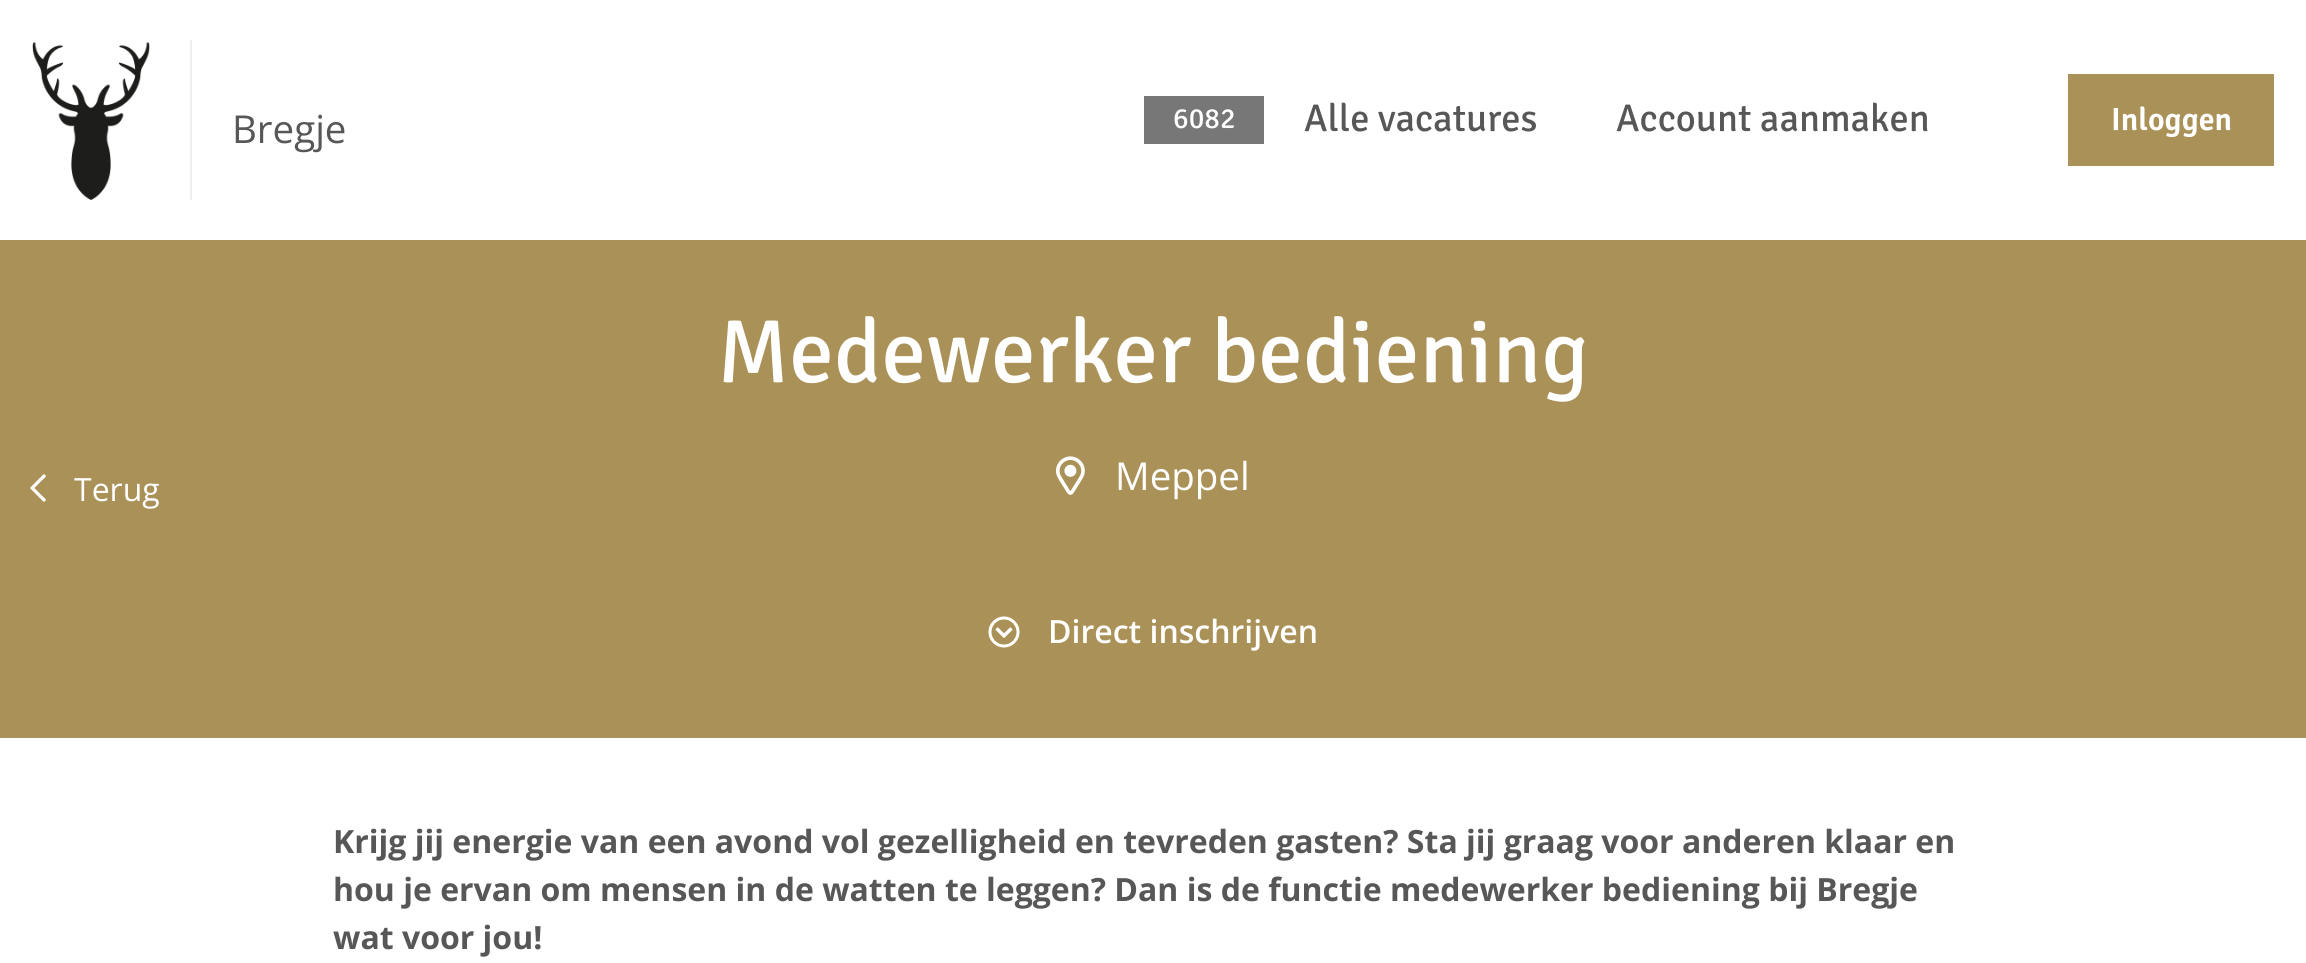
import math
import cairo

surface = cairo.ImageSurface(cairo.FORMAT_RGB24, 2306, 963)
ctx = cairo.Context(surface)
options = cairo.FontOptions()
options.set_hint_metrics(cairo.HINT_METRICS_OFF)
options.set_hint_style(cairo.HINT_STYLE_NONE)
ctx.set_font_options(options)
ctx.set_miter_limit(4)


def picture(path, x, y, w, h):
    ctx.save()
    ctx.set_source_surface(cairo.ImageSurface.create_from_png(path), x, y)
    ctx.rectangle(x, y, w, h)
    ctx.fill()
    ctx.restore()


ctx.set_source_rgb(1, 1, 1)
ctx.paint()
ctx.set_source_rgb(0.933, 0.933, 0.933)
ctx.rectangle(190, 40, 2, 160)
ctx.fill()
picture("img1.png", 32, 41, 118, 159)
ctx.select_font_face("Open Sans")
ctx.set_font_size(38.5)
ctx.set_source_rgb(0.341, 0.341, 0.341)
ctx.move_to(232, 143)
ctx.show_text("Bregje")
ctx.set_source_rgb(0.467, 0.467, 0.467)
ctx.rectangle(1144, 96, 120, 48)
ctx.fill()
ctx.select_font_face("Signika")
ctx.set_font_size(29)
ctx.set_source_rgb(1, 1, 1)
ctx.move_to(1173, 128)
ctx.show_text("6082")
ctx.set_font_size(38.5)
ctx.set_source_rgb(0.341, 0.341, 0.341)
ctx.move_to(1304, 131)
ctx.show_text("Alle vacatures")
ctx.move_to(1616, 131)
ctx.show_text("Account aanmaken")
ctx.set_source_rgb(0.667, 0.569, 0.341)
ctx.rectangle(2068, 74, 206, 92)
ctx.fill()
ctx.select_font_face("Signika SemiBold")
ctx.set_font_size(32)
ctx.set_source_rgb(1, 1, 1)
ctx.move_to(2111, 130)
ctx.show_text("Inloggen")
ctx.set_source_rgb(0.667, 0.569, 0.341)
ctx.rectangle(0, 240, 2306, 498)
ctx.fill()
ctx.select_font_face("Signika")
ctx.set_font_size(89.5)
ctx.set_source_rgb(1, 1, 1)
ctx.move_to(717, 382)
ctx.show_text("Medewerker bediening")
picture("img2.png", 30, 474, 16, 28)
ctx.select_font_face("Open Sans")
ctx.set_font_size(32)
ctx.move_to(74, 501)
ctx.show_text("Terug")
picture("img3.png", 1056, 456, 29, 39)
ctx.set_font_size(38.5)
ctx.move_to(1115, 490)
ctx.show_text("Meppel")
picture("img4.png", 988, 616, 32, 32)
ctx.select_font_face("Open Sans SemiBold")
ctx.set_font_size(32)
ctx.move_to(1048, 643)
ctx.show_text("Direct inschrijven")
ctx.select_font_face("Open Sans", cairo.FONT_SLANT_NORMAL, cairo.FONT_WEIGHT_BOLD)
ctx.set_source_rgb(0.341, 0.341, 0.341)
ctx.move_to(333, 853)
ctx.show_text("Krijg jij energie van een avond vol gezelligheid en tevreden gasten? Sta jij graag voor anderen klaar en")
ctx.move_to(333, 901)
ctx.show_text("hou je ervan om mensen in de watten te leggen? Dan is de functie medewerker bediening bij Bregje")
ctx.move_to(333, 949)
ctx.show_text("wat voor jou!")
surface.write_to_png("page.png")
